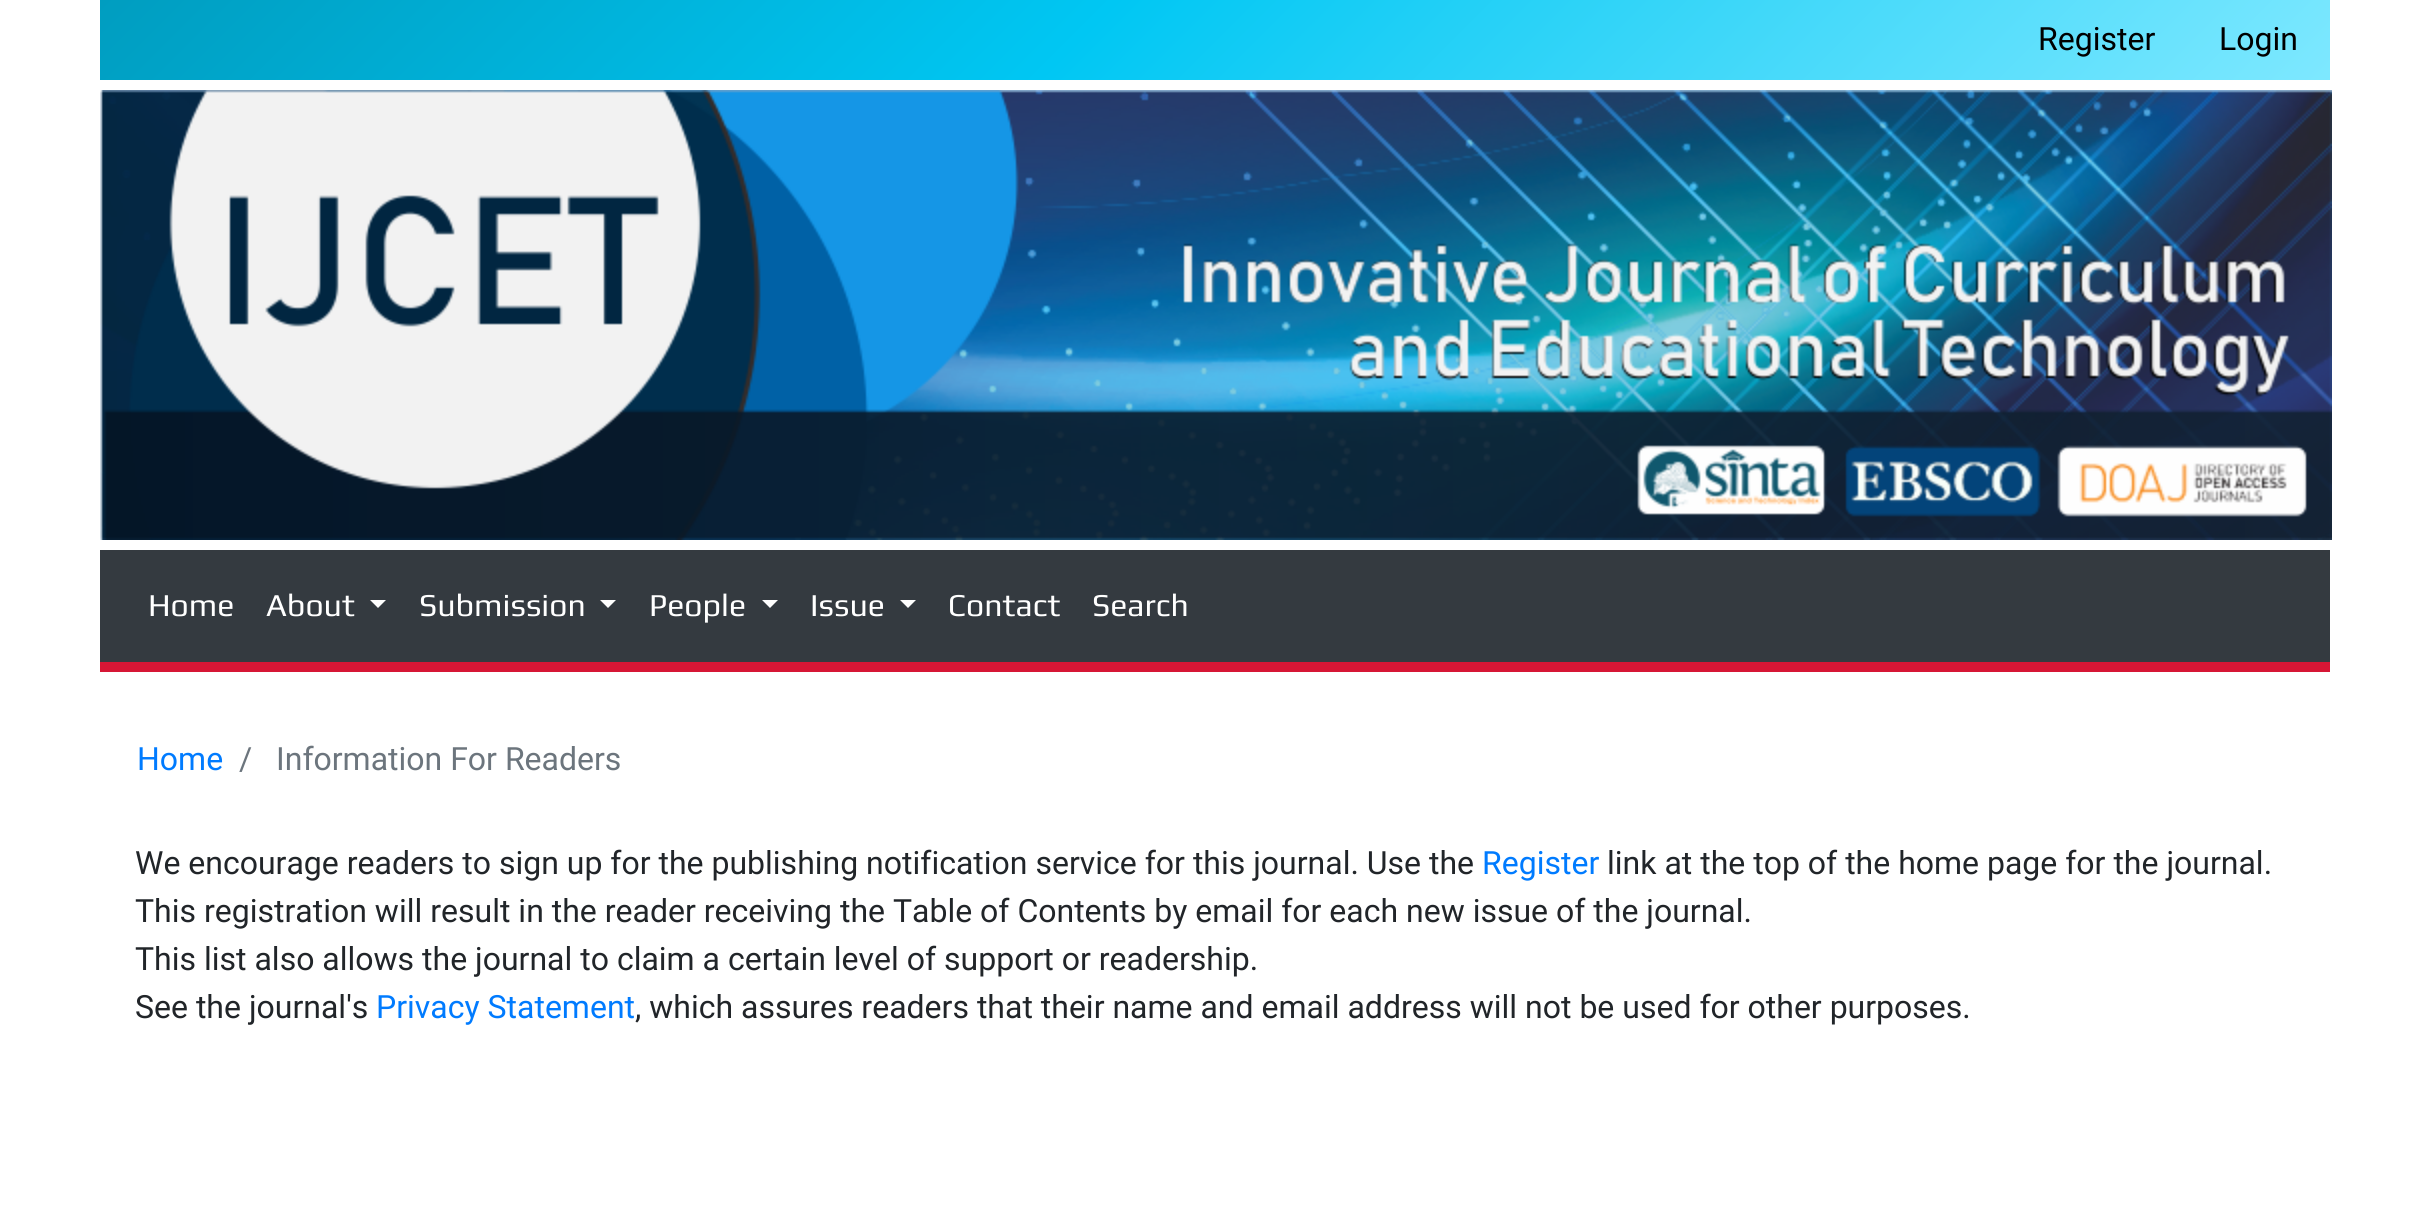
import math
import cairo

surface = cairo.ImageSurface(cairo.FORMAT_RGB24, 2429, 1221)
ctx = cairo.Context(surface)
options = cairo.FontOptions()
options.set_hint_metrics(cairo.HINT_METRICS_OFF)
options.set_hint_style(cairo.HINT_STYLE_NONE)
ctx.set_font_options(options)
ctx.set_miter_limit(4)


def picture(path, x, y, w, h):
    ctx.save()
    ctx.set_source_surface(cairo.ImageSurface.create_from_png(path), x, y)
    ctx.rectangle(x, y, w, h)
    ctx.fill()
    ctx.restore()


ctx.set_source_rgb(1, 1, 1)
ctx.paint()
gradient = cairo.LinearGradient(638, -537, 1793, 618)
gradient.add_color_stop_rgba(0, 0, 0.616, 0.753, 1)
gradient.add_color_stop_rgba(0.44, 0, 0.78, 0.953, 1)
gradient.add_color_stop_rgba(1, 0.494, 0.91, 1, 1)
ctx.set_source(gradient)
ctx.rectangle(100, 0, 2230, 80)
ctx.fill()
ctx.select_font_face("Roboto")
ctx.set_font_size(32)
ctx.set_source_rgb(0, 0, 0)
ctx.move_to(2038, 50)
ctx.show_text("Register")
ctx.move_to(2219, 50)
ctx.show_text("Login")
picture("img1.png", 100, 90, 2232, 450)
ctx.set_source_rgb(0.204, 0.227, 0.251)
ctx.rectangle(100, 550, 2230, 112)
ctx.fill()
ctx.set_source_rgb(0.839, 0.086, 0.208)
ctx.rectangle(100, 662, 2230, 10)
ctx.fill()
ctx.select_font_face("Play")
ctx.set_source_rgb(1, 1, 1)
ctx.move_to(148, 616)
ctx.show_text("Home")
ctx.move_to(266, 616)
ctx.show_text("About")
ctx.new_path()
ctx.move_to(370, 600)
ctx.line_to(386, 600)
ctx.line_to(378, 608)
ctx.close_path()
ctx.fill()
ctx.move_to(419, 616)
ctx.show_text("Submission")
ctx.new_path()
ctx.move_to(600, 600)
ctx.line_to(616, 600)
ctx.line_to(608, 608)
ctx.close_path()
ctx.fill()
ctx.move_to(649, 616)
ctx.show_text("People")
ctx.new_path()
ctx.move_to(762, 600)
ctx.line_to(778, 600)
ctx.line_to(770, 608)
ctx.close_path()
ctx.fill()
ctx.move_to(810, 616)
ctx.show_text("Issue")
ctx.new_path()
ctx.move_to(900, 600)
ctx.line_to(916, 600)
ctx.line_to(908, 608)
ctx.close_path()
ctx.fill()
ctx.move_to(948, 616)
ctx.show_text("Contact")
ctx.move_to(1092, 616)
ctx.show_text("Search")
ctx.select_font_face("Roboto")
ctx.set_source_rgb(0, 0.482, 1)
ctx.move_to(137, 770)
ctx.show_text("Home")
ctx.set_source_rgb(0.424, 0.459, 0.49)
ctx.move_to(239, 770)
ctx.show_text("/")
ctx.move_to(276, 770)
ctx.show_text("Information For Readers")
ctx.set_source_rgb(0.129, 0.145, 0.161)
ctx.move_to(135, 874)
ctx.show_text("We encourage readers to sign up for the publishing notification service for this journal. Use the")
ctx.set_source_rgb(0, 0.482, 1)
ctx.move_to(1482, 874)
ctx.show_text("Register")
ctx.set_source_rgb(0.129, 0.145, 0.161)
ctx.move_to(1607, 874)
ctx.show_text("link at the top of the home page for the journal.")
ctx.move_to(135, 922)
ctx.show_text("This registration will result in the reader receiving the Table of Contents by email for each new issue of the journal.")
ctx.move_to(135, 970)
ctx.show_text("This list also allows the journal to claim a certain level of support or readership.")
ctx.move_to(135, 1018)
ctx.show_text("See the journal's")
ctx.set_source_rgb(0, 0.482, 1)
ctx.move_to(376, 1018)
ctx.show_text("Privacy Statement")
ctx.set_source_rgb(0.129, 0.145, 0.161)
ctx.move_to(635, 1018)
ctx.show_text(", which assures readers that their name and email address will not be used for other purposes.")
surface.write_to_png("page.png")
